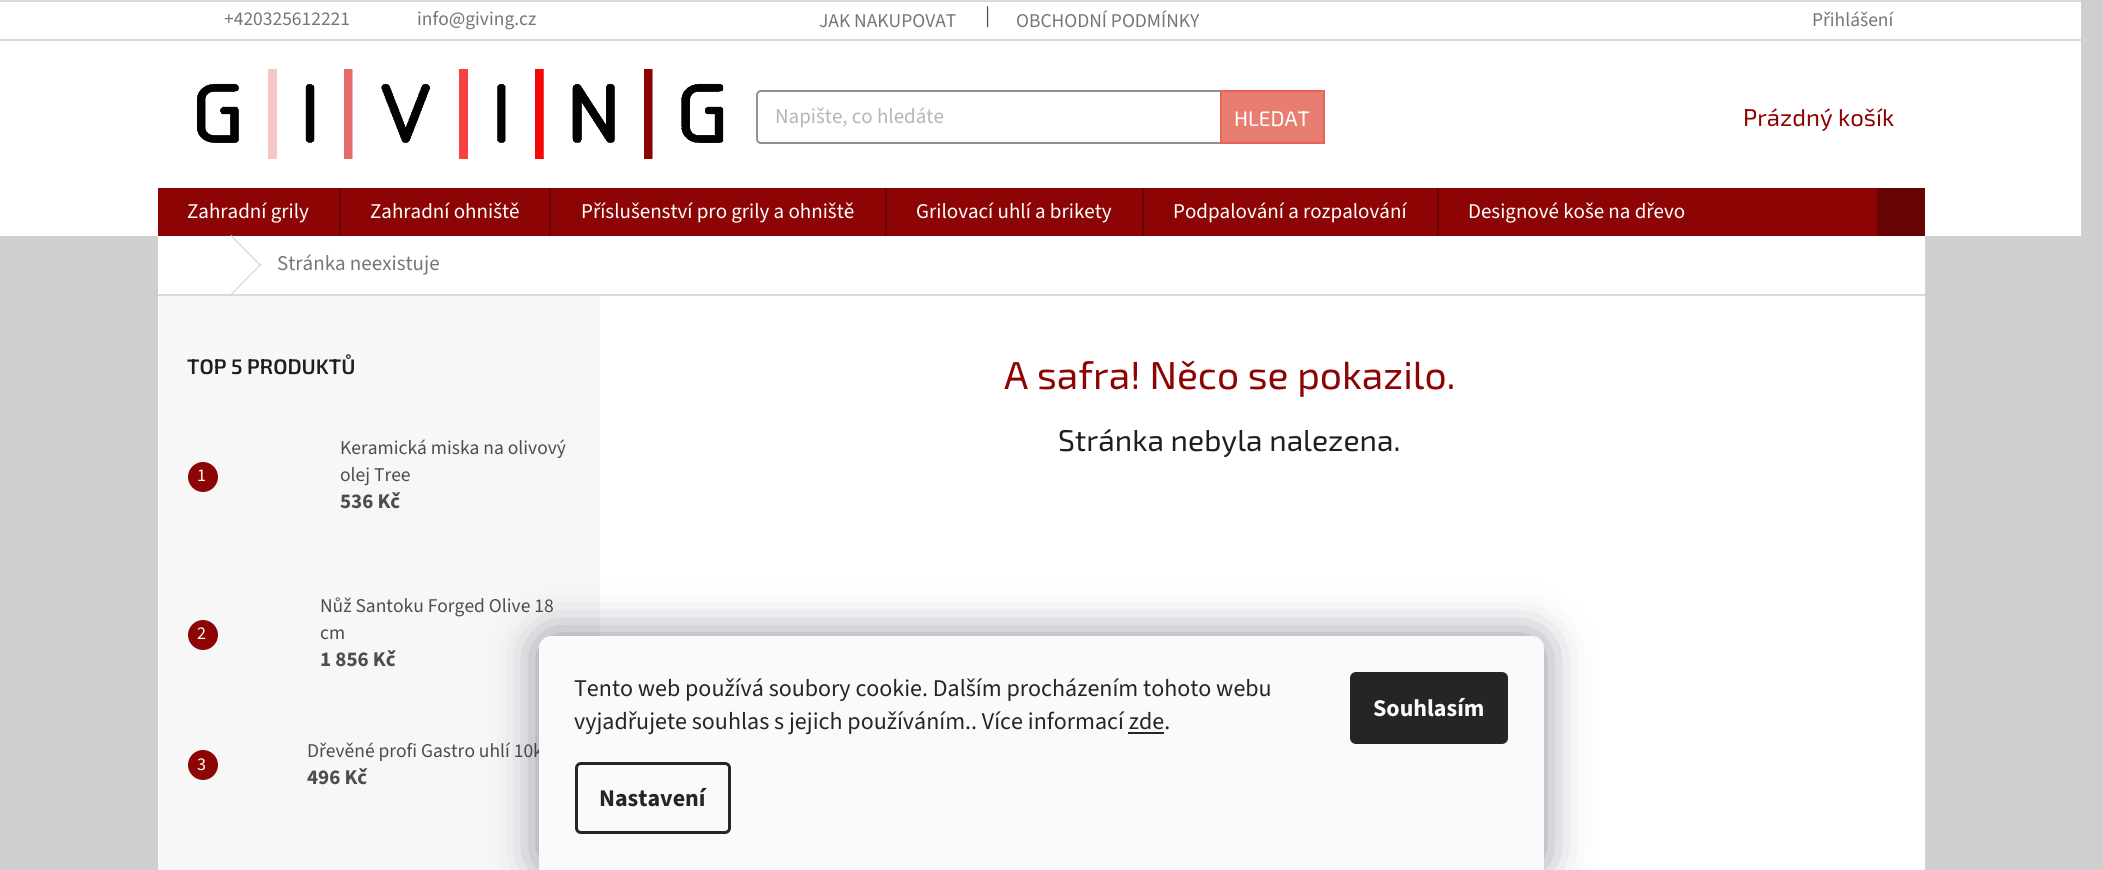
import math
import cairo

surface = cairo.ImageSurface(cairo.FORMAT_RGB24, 2103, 870)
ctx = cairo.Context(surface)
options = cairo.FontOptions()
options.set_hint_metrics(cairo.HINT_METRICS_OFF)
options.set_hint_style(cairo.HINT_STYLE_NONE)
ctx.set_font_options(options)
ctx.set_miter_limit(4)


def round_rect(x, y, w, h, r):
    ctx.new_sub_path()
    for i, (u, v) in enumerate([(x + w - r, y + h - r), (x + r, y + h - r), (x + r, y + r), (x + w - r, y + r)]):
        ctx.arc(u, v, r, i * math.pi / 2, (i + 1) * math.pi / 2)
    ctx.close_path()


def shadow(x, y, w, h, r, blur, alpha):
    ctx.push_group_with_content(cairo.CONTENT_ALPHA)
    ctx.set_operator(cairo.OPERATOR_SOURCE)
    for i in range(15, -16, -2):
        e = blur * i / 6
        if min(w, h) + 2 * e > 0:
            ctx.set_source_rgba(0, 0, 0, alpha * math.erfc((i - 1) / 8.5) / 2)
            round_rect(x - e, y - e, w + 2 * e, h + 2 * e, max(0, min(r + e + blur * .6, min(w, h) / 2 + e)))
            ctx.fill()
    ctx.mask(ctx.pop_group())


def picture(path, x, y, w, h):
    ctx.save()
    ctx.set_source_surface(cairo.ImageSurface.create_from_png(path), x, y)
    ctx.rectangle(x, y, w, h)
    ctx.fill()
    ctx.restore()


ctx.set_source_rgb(0.812, 0.812, 0.812)
ctx.paint()
ctx.set_source_rgb(1, 1, 1)
ctx.rectangle(0, 2, 2081, 37)
ctx.fill()
ctx.set_source_rgb(0.855, 0.855, 0.855)
ctx.rectangle(0, 0, 2081, 2)
ctx.fill()
ctx.rectangle(0, 39, 2081, 2)
ctx.fill()
ctx.select_font_face("Source Sans 3")
ctx.set_font_size(19.5)
ctx.set_source_rgb(0.463, 0.463, 0.463)
ctx.move_to(224, 25)
ctx.show_text("+420325612221")
ctx.move_to(417, 25)
ctx.show_text("info@giving.cz")
ctx.move_to(819, 27)
ctx.show_text("JAK NAKUPOVAT")
ctx.set_font_size(21)
ctx.set_source_rgb(0.302, 0.302, 0.302)
ctx.move_to(985, 22)
ctx.show_text("|")
ctx.set_font_size(19.5)
ctx.set_source_rgb(0.463, 0.463, 0.463)
ctx.move_to(1016, 27)
ctx.show_text("OBCHODNÍ PODMÍNKY")
ctx.move_to(1812, 26)
ctx.show_text("Přihlášení")
ctx.set_source_rgb(1, 1, 1)
ctx.rectangle(0, 41, 2081, 195)
ctx.fill()
picture("img1.png", 197, 69, 527, 90)
round_rect(757, 91, 567, 52, 4)
ctx.set_source_rgb(0.569, 0.569, 0.569)
ctx.stroke()
ctx.set_font_size(21)
ctx.set_source_rgb(0.714, 0.714, 0.714)
ctx.move_to(775, 123)
ctx.show_text("Napište, co hledáte")
ctx.set_source_rgb(0.91, 0.494, 0.447)
ctx.rectangle(1221, 91, 103, 52)
ctx.fill_preserve()
ctx.set_source_rgb(0.91, 0.392, 0.337)
ctx.stroke()
ctx.select_font_face("Exo 2")
ctx.set_source_rgb(1, 1, 1)
ctx.move_to(1234, 126)
ctx.show_text("HLEDAT")
ctx.set_font_size(24)
ctx.set_source_rgb(0.553, 0.016, 0.016)
ctx.move_to(1743, 126)
ctx.show_text("Prázdný košík")
ctx.rectangle(158, 188, 1719, 48)
ctx.fill()
ctx.select_font_face("Source Sans 3")
ctx.set_font_size(21)
ctx.set_source_rgb(1, 1, 1)
ctx.move_to(187, 218)
ctx.show_text("Zahradní grily")
ctx.set_source_rgb(0.408, 0.012, 0.012)
ctx.rectangle(339, 188, 2, 48)
ctx.fill()
ctx.set_source_rgb(1, 1, 1)
ctx.move_to(370, 218)
ctx.show_text("Zahradní ohniště")
ctx.set_source_rgb(0.408, 0.012, 0.012)
ctx.rectangle(549, 188, 2, 48)
ctx.fill()
ctx.set_source_rgb(1, 1, 1)
ctx.move_to(581, 218)
ctx.show_text("Příslušenství pro grily a ohniště")
ctx.set_source_rgb(0.408, 0.012, 0.012)
ctx.rectangle(885, 188, 2, 48)
ctx.fill()
ctx.set_source_rgb(1, 1, 1)
ctx.move_to(916, 218)
ctx.show_text("Grilovací uhlí a brikety")
ctx.set_source_rgb(0.408, 0.012, 0.012)
ctx.rectangle(1142, 188, 2, 48)
ctx.fill()
ctx.set_source_rgb(1, 1, 1)
ctx.move_to(1173, 218)
ctx.show_text("Podpalování a rozpalování")
ctx.set_source_rgb(0.408, 0.012, 0.012)
ctx.rectangle(1437, 188, 2, 48)
ctx.fill()
ctx.set_source_rgb(1, 1, 1)
ctx.move_to(1468, 218)
ctx.show_text("Designové koše na dřevo")
ctx.set_source_rgb(0.408, 0.012, 0.012)
ctx.rectangle(1877, 188, 48, 48)
ctx.fill()
ctx.set_source_rgb(1, 1, 1)
ctx.rectangle(158, 236, 1767, 58)
ctx.fill()
ctx.set_source_rgb(0.855, 0.855, 0.855)
ctx.rectangle(158, 294, 1767, 2)
ctx.fill()
ctx.new_path()
ctx.move_to(230.5, 236)
ctx.line_to(231.5, 235)
ctx.line_to(261.5, 265.5)
ctx.line_to(260.5, 266.5)
ctx.close_path()
ctx.fill()
ctx.new_path()
ctx.move_to(260.5, 263.5)
ctx.line_to(261.5, 264.5)
ctx.line_to(231.5, 295)
ctx.line_to(230.5, 294)
ctx.close_path()
ctx.fill()
ctx.set_source_rgb(0.463, 0.463, 0.463)
ctx.move_to(277, 270)
ctx.show_text("Stránka neexistuje")
ctx.set_source_rgb(1, 1, 1)
ctx.rectangle(600, 296, 1325, 574)
ctx.fill()
ctx.set_source_rgb(0.965, 0.965, 0.965)
ctx.rectangle(158, 296, 442, 574)
ctx.fill()
ctx.select_font_face("Exo 2 SemiBold")
ctx.set_source_rgb(0.122, 0.122, 0.122)
ctx.move_to(187, 374)
ctx.show_text("TOP 5 PRODUKTŮ")
ctx.set_source_rgb(0.553, 0.016, 0.016)
ctx.new_path()
ctx.arc(203, 477, 15, 0, 2 * math.pi)
ctx.fill()
ctx.select_font_face("Source Sans 3")
ctx.set_font_size(18)
ctx.set_source_rgb(1, 1, 1)
ctx.move_to(197, 481)
ctx.show_text("1")
ctx.set_font_size(19.5)
ctx.set_source_rgb(0.302, 0.302, 0.302)
ctx.move_to(340, 454)
ctx.show_text("Keramická miska na olivový")
ctx.move_to(340, 481)
ctx.show_text("olej Tree")
ctx.select_font_face("Source Sans 3", cairo.FONT_SLANT_NORMAL, cairo.FONT_WEIGHT_BOLD)
ctx.set_font_size(21)
ctx.move_to(340, 508)
ctx.show_text("536 Kč")
ctx.set_source_rgb(0.553, 0.016, 0.016)
ctx.new_path()
ctx.arc(203, 635, 15, 0, 2 * math.pi)
ctx.fill()
ctx.select_font_face("Source Sans 3")
ctx.set_font_size(18)
ctx.set_source_rgb(1, 1, 1)
ctx.move_to(197, 639)
ctx.show_text("2")
ctx.set_font_size(19.5)
ctx.set_source_rgb(0.302, 0.302, 0.302)
ctx.move_to(320, 612)
ctx.show_text("Nůž Santoku Forged Olive 18")
ctx.move_to(320, 639)
ctx.show_text("cm")
ctx.select_font_face("Source Sans 3", cairo.FONT_SLANT_NORMAL, cairo.FONT_WEIGHT_BOLD)
ctx.set_font_size(21)
ctx.move_to(320, 666)
ctx.show_text("1 856 Kč")
ctx.set_source_rgb(0.553, 0.016, 0.016)
ctx.new_path()
ctx.arc(203, 765, 15, 0, 2 * math.pi)
ctx.fill()
ctx.select_font_face("Source Sans 3")
ctx.set_font_size(18)
ctx.set_source_rgb(1, 1, 1)
ctx.move_to(197, 770)
ctx.show_text("3")
ctx.set_font_size(19.5)
ctx.set_source_rgb(0.302, 0.302, 0.302)
ctx.move_to(307, 757)
ctx.show_text("Dřevěné profi Gastro uhlí 10k")
ctx.select_font_face("Source Sans 3", cairo.FONT_SLANT_NORMAL, cairo.FONT_WEIGHT_BOLD)
ctx.set_font_size(21)
ctx.move_to(307, 784)
ctx.show_text("496 Kč")
ctx.select_font_face("Exo 2")
ctx.set_font_size(39)
ctx.set_source_rgb(0.553, 0.016, 0.016)
ctx.move_to(1004, 389)
ctx.show_text("A safra! Něco se pokazilo.")
ctx.set_font_size(30)
ctx.set_source_rgb(0.122, 0.122, 0.122)
ctx.move_to(1058, 451)
ctx.show_text("Stránka nebyla nalezena.")
ctx.set_source_rgb(0.106, 0.098, 0.224)
shadow(539, 636, 1005, 234, 12, 22.5, 0.5)
ctx.set_source_rgb(0.973, 0.98, 0.984)
ctx.new_path()
ctx.move_to(551, 636)
ctx.line_to(1532, 636)
ctx.curve_to(1538.5, 636, 1544, 641.5, 1544, 648)
ctx.line_to(1544, 870)
ctx.line_to(539, 870)
ctx.line_to(539, 648)
ctx.curve_to(539, 641.5, 544.5, 636, 551, 636)
ctx.close_path()
ctx.fill()
ctx.select_font_face("Source Sans 3")
ctx.set_font_size(24)
ctx.set_source_rgb(0.145, 0.145, 0.145)
ctx.move_to(574, 696)
ctx.show_text("Tento web používá soubory cookie. Dalším procházením tohoto webu")
ctx.move_to(574, 729)
ctx.show_text("vyjadřujete souhlas s jejich používáním.. Více informací zde.")
ctx.rectangle(1128, 732, 36, 2)
ctx.fill()
round_rect(576.5, 763.5, 153, 69, 4.5)
ctx.set_line_width(3)
ctx.stroke()
ctx.select_font_face("Source Sans 3", cairo.FONT_SLANT_NORMAL, cairo.FONT_WEIGHT_BOLD)
ctx.move_to(599, 806)
ctx.show_text("Nastavení")
round_rect(1350, 672, 158, 72, 6)
ctx.fill()
ctx.set_source_rgb(0.973, 0.98, 0.984)
ctx.move_to(1373, 716)
ctx.show_text("Souhlasím")
surface.write_to_png("page.png")
